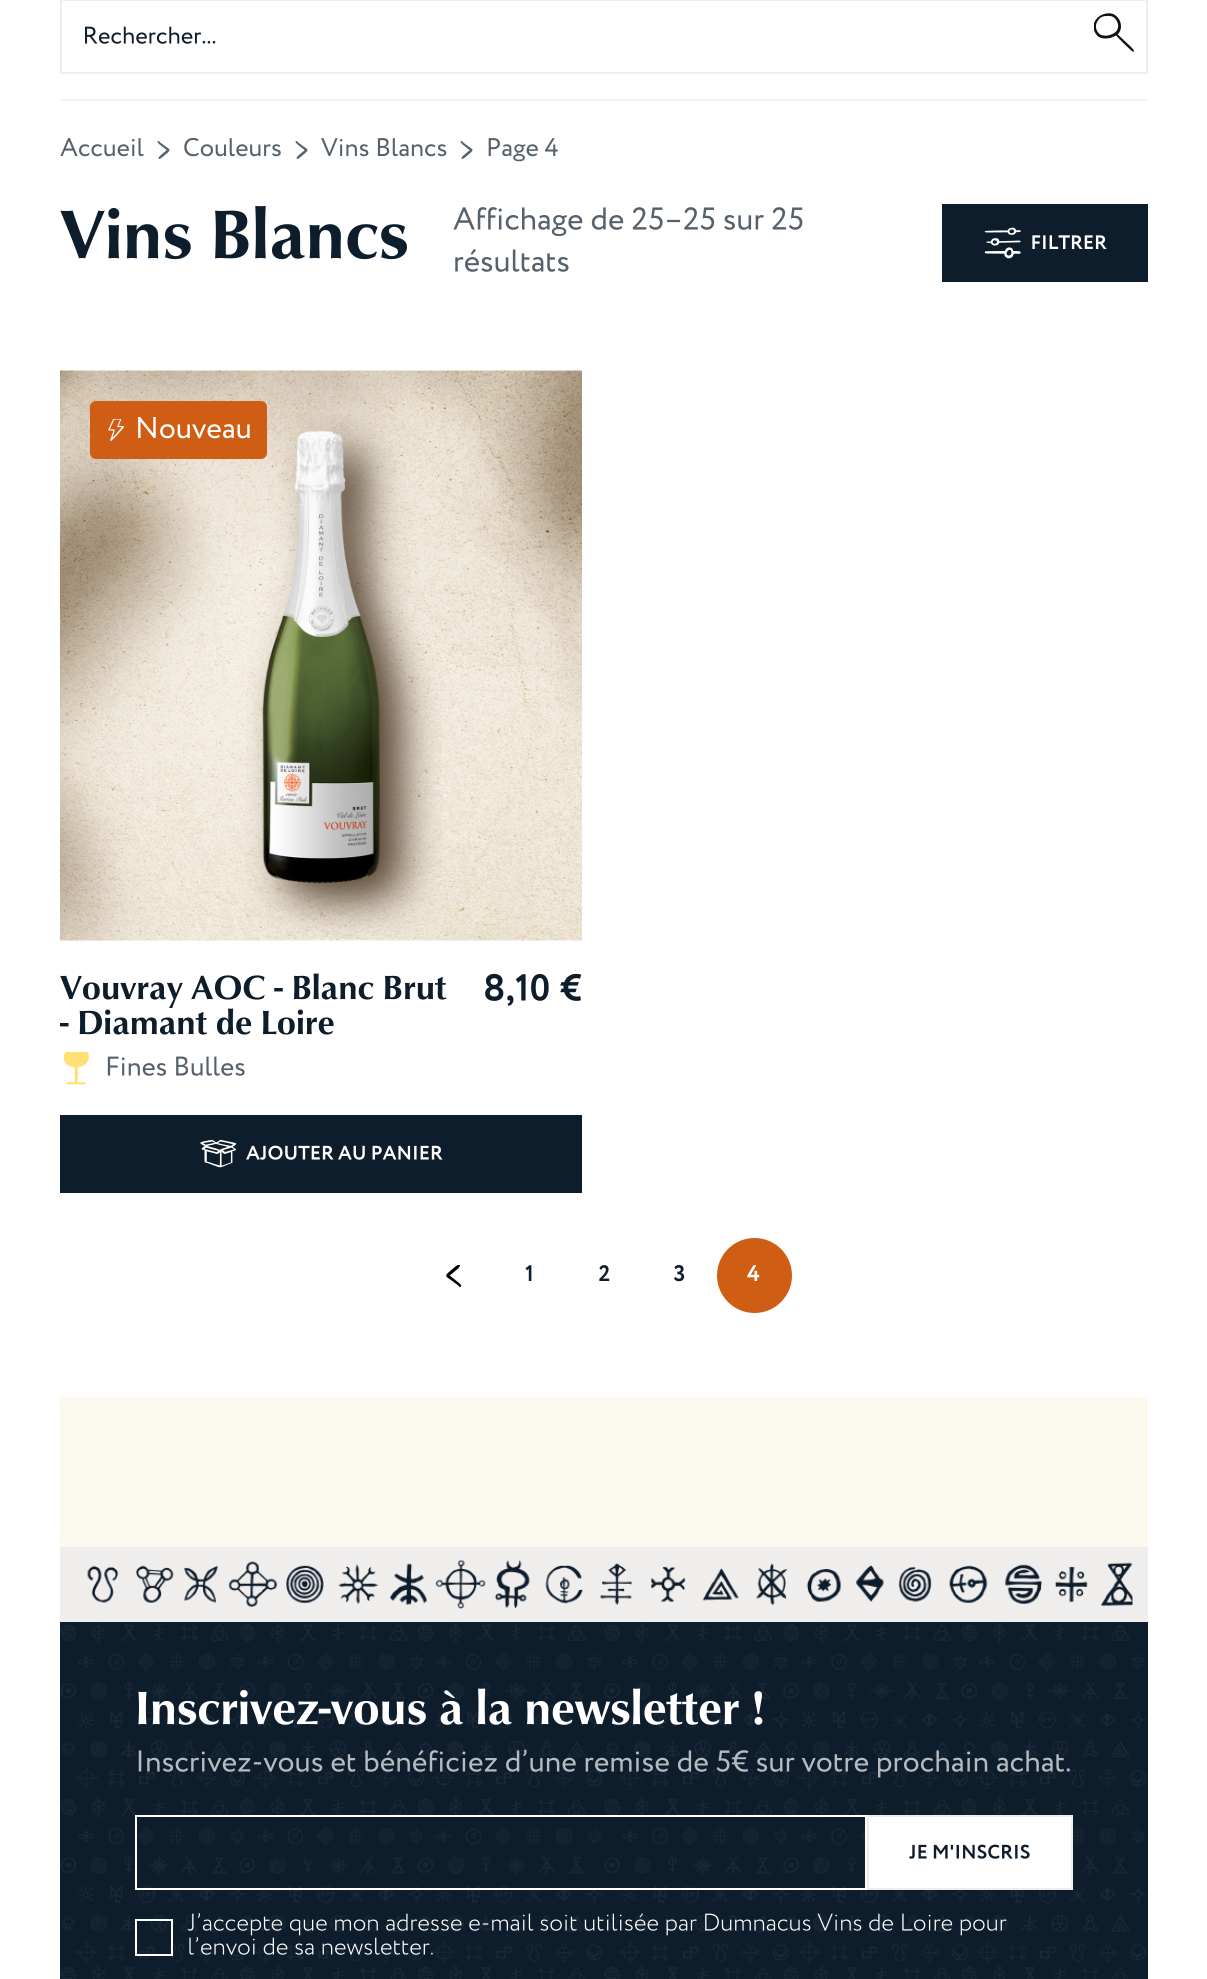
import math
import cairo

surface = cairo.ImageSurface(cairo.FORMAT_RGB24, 1207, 1979)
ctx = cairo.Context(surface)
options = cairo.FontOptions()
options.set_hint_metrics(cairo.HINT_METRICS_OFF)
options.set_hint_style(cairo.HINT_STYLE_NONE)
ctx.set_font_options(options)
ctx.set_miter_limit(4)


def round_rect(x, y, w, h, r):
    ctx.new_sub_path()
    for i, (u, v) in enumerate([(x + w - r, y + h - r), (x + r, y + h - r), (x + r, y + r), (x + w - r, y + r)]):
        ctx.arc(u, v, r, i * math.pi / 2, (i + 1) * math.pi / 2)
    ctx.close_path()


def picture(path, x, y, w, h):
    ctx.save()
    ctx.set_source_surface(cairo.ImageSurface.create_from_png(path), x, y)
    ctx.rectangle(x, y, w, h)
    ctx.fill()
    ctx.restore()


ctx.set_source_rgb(1, 1, 1)
ctx.paint()
ctx.rectangle(61, 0, 1086, 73)
ctx.set_source_rgb(0.941, 0.929, 0.929)
ctx.stroke()
picture("img1.png", 85, 26, 131, 18)
picture("img2.png", 1094, 13, 40, 39)
ctx.set_source_rgb(0.961, 0.949, 0.949)
ctx.rectangle(60, 99, 1088, 2)
ctx.fill()
picture("img3.png", 60, 138, 84, 19)
picture("img4.png", 157, 141, 13, 18)
picture("img5.png", 184, 137, 97, 20)
picture("img4.png", 295, 141, 13, 18)
picture("img6.png", 321, 138, 126, 19)
picture("img4.png", 460, 141, 13, 18)
picture("img7.png", 488, 138, 70, 24)
ctx.select_font_face("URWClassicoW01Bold", cairo.FONT_SLANT_NORMAL, cairo.FONT_WEIGHT_BOLD)
ctx.set_font_size(70.5)
ctx.set_source_rgb(0.051, 0.114, 0.173)
ctx.move_to(60, 258)
ctx.show_text("Vins Blancs")
picture("img8.png", 453, 207, 350, 29)
picture("img9.png", 455, 248, 114, 24)
ctx.rectangle(942, 204, 206, 78)
ctx.fill()
picture("img10.png", 984, 227, 37, 32)
picture("img11.png", 1032, 235, 75, 14)
picture("img12.png", 60, 370, 522, 571)
picture("img15.png", 246, 415, 196, 524)
ctx.set_source_rgb(0.816, 0.365, 0.082)
round_rect(90, 401, 177, 58, 6)
ctx.fill()
picture("img13.png", 108, 419, 16, 22)
picture("img14.png", 138, 417, 112, 22)
ctx.set_font_size(34.5)
ctx.set_source_rgb(0.051, 0.114, 0.173)
ctx.move_to(60, 999)
ctx.show_text("Vouvray AOC - Blanc Brut")
ctx.move_to(60, 1034)
ctx.show_text("- Diamant de Loire")
picture("img16.png", 485, 973, 64, 33)
picture("img17.png", 560, 973, 22, 28)
picture("img18.png", 63, 1052, 26, 33)
picture("img19.png", 107, 1056, 138, 20)
ctx.rectangle(60, 1115, 522, 78)
ctx.fill()
picture("img20.png", 200, 1139, 37, 29)
picture("img21.png", 246, 1145, 197, 15)
picture("img22.png", 446, 1265, 16, 22)
picture("img23.png", 525, 1265, 7, 16)
picture("img24.png", 599, 1265, 11, 16)
picture("img25.png", 674, 1265, 11, 17)
ctx.set_source_rgb(0.816, 0.365, 0.082)
ctx.arc(754.5, 1275.5, 37.5, 0, 2 * math.pi)
ctx.fill()
picture("img26.png", 747, 1265, 13, 16)
ctx.set_source_rgb(0.984, 0.969, 0.933)
ctx.rectangle(60, 1397, 1088, 150)
ctx.fill()
ctx.set_source_rgb(0.941, 0.929, 0.929)
ctx.rectangle(60, 1547, 1088, 75)
ctx.fill()
picture("img27.png", 87, 1560, 1046, 49)
ctx.set_source_rgb(0.051, 0.114, 0.173)
ctx.rectangle(60, 1622, 1088, 357)
ctx.fill()
picture("img28.png", 60, 1622, 1087, 357)
ctx.set_font_size(48)
ctx.set_source_rgb(1, 1, 1)
ctx.move_to(135, 1724)
ctx.show_text("Inscrivez-vous à la newsletter !")
picture("img29.png", 138, 1749, 932, 29)
ctx.rectangle(136, 1816, 730, 73)
ctx.stroke()
picture("img30.png", 165, 1856, 203, 4)
ctx.rectangle(868, 1816, 204, 73)
ctx.fill_preserve()
ctx.set_source_rgb(0.941, 0.929, 0.929)
ctx.stroke()
picture("img31.png", 909, 1844, 121, 15)
ctx.rectangle(136, 1920, 36, 35)
ctx.set_source_rgb(1, 1, 1)
ctx.stroke()
picture("img32.png", 187, 1913, 820, 23)
picture("img33.png", 189, 1937, 244, 18)
surface.write_to_png("page.png")
